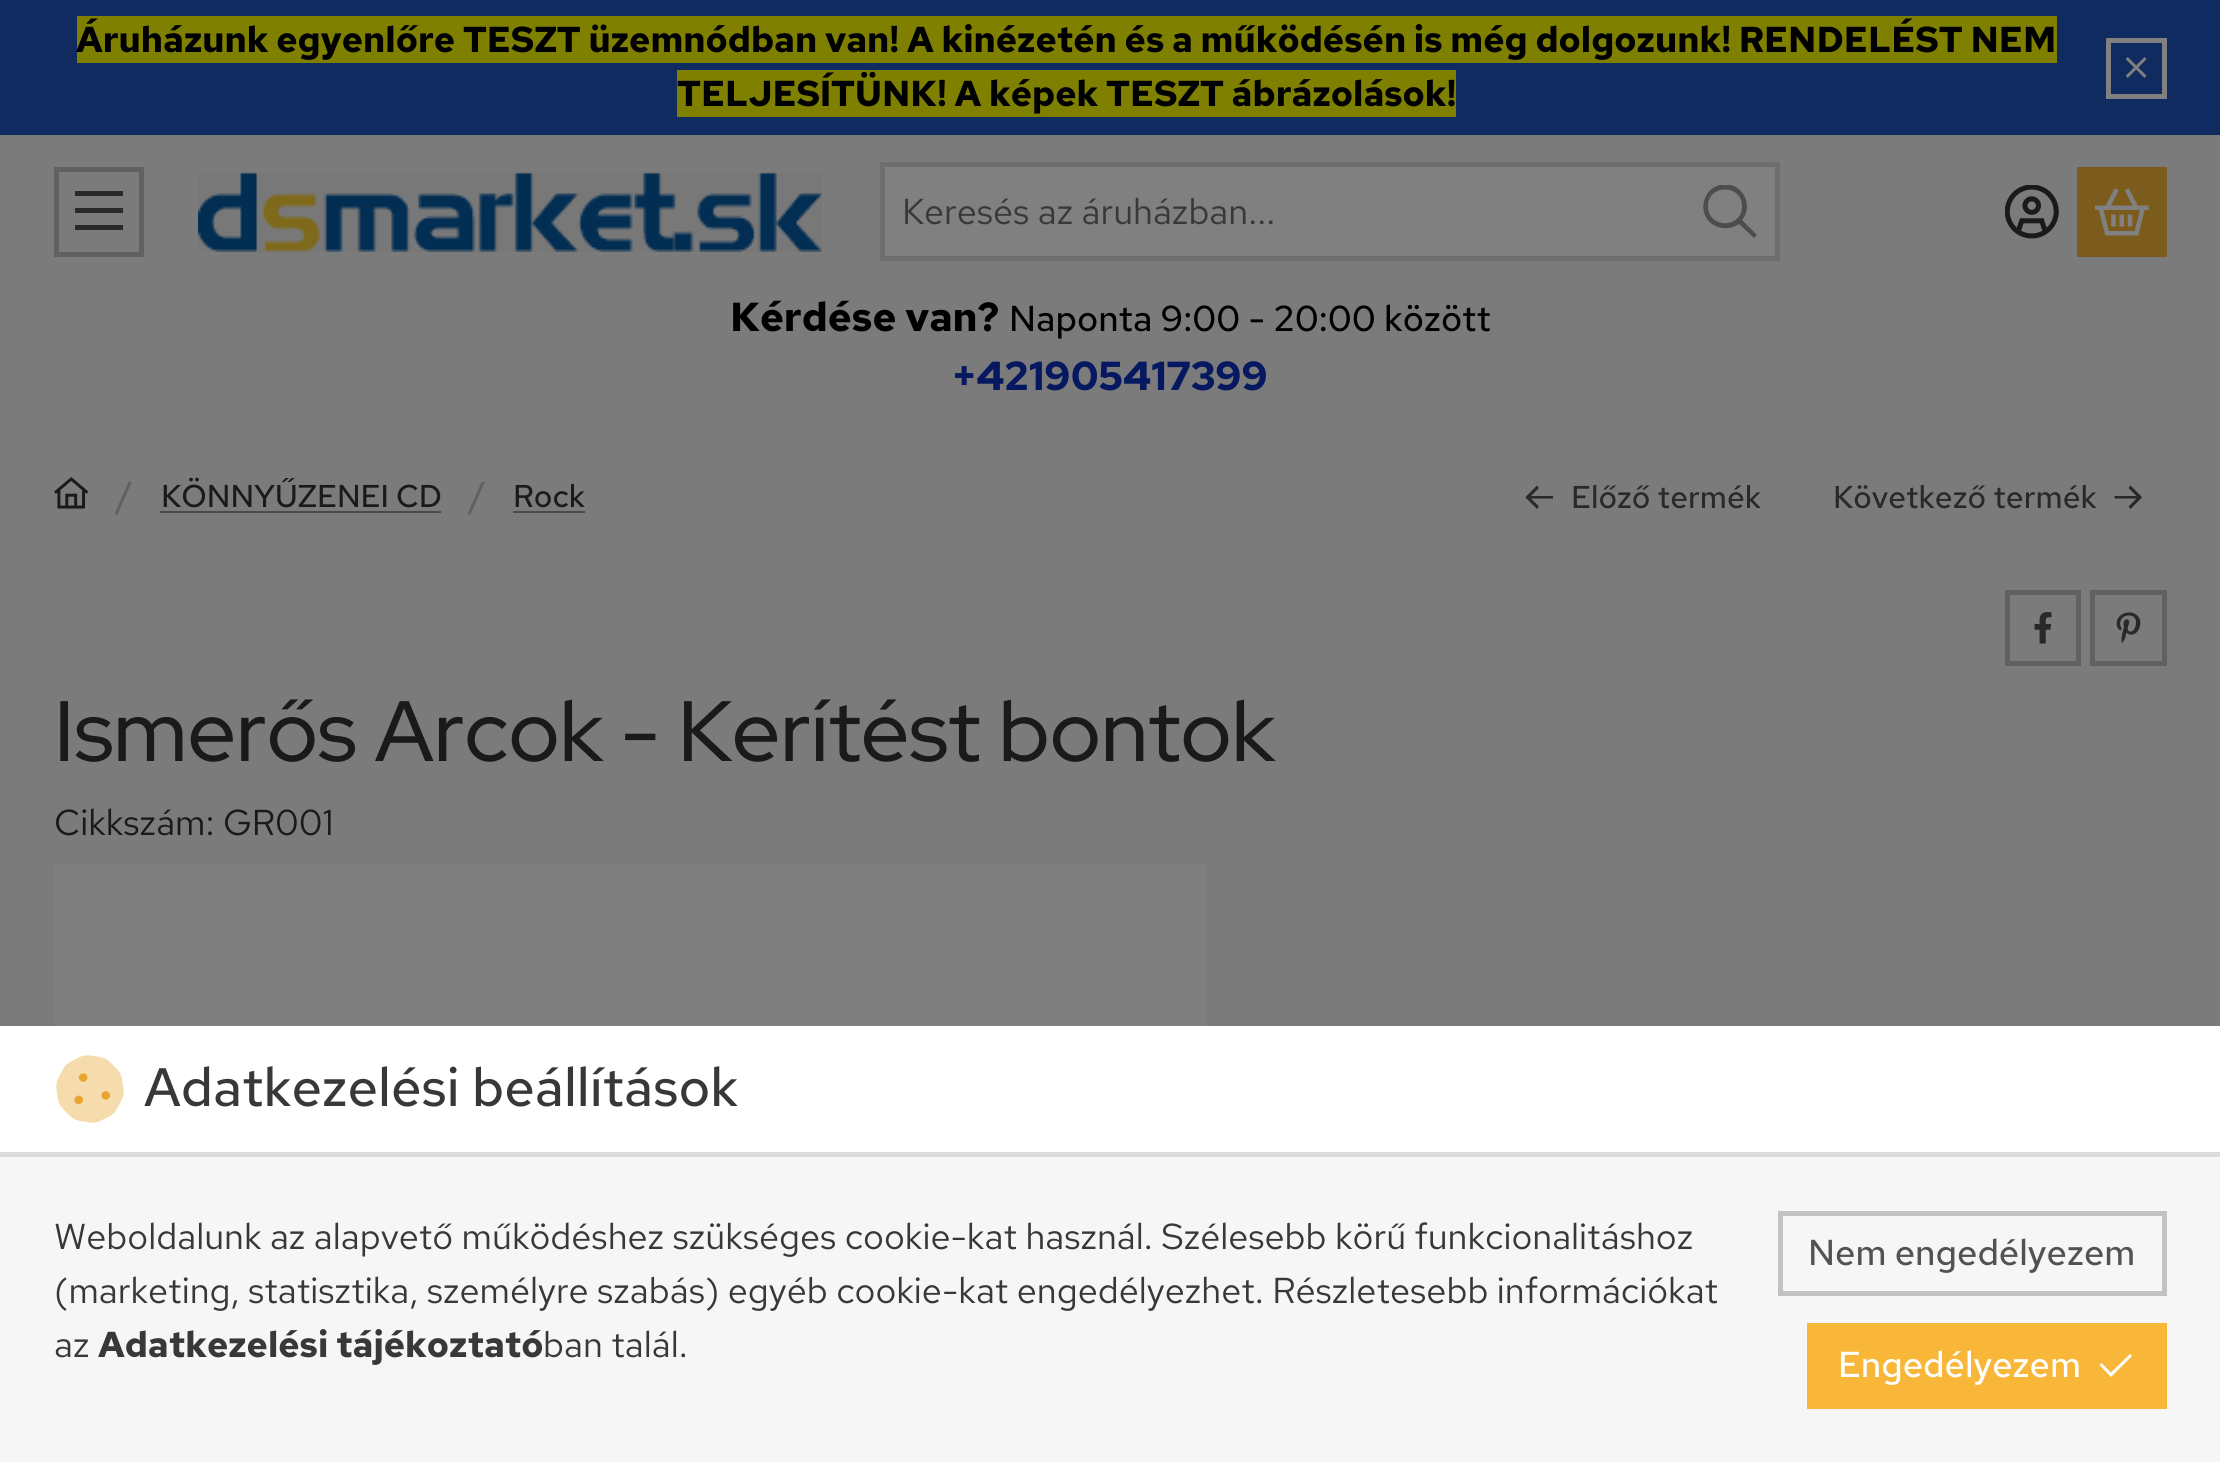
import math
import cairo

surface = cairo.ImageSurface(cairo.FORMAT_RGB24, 2220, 1462)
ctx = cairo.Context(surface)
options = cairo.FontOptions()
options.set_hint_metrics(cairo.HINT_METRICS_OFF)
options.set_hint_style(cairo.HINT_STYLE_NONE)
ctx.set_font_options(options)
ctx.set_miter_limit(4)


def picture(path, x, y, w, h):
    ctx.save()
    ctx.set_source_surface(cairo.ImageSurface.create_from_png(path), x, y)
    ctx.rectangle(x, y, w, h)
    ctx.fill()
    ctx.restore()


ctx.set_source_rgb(0.482, 0.482, 0.482)
ctx.paint()
ctx.set_source_rgb(0.063, 0.169, 0.376)
ctx.rectangle(0, 0, 2220, 135)
ctx.fill()
ctx.set_source_rgb(0.502, 0.502, 0)
ctx.rectangle(77, 16, 1980, 47)
ctx.fill()
ctx.select_font_face("Red Hat Text", cairo.FONT_SLANT_NORMAL, cairo.FONT_WEIGHT_BOLD)
ctx.set_font_size(36)
ctx.set_source_rgb(0, 0, 0)
ctx.move_to(76, 52)
ctx.show_text("Áruházunk egyenlőre TESZT üzemnódban van! A kinézetén és a működésén is még dolgozunk! RENDELÉST NEM")
ctx.set_source_rgb(0.502, 0.502, 0)
ctx.rectangle(677, 70, 779, 47)
ctx.fill()
ctx.set_source_rgb(0, 0, 0)
ctx.move_to(677, 106)
ctx.show_text("TELJESÍTÜNK! A képek TESZT ábrázolások!")
ctx.rectangle(2108.5, 40.5, 56, 56)
ctx.set_source_rgb(0.502, 0.502, 0.502)
ctx.set_line_width(5)
ctx.stroke()
picture("img1.png", 2125, 57, 22, 21)
ctx.rectangle(56.5, 169.5, 85, 85)
ctx.set_source_rgb(0.38, 0.38, 0.38)
ctx.stroke()
ctx.set_source_rgb(0.161, 0.161, 0.161)
ctx.new_path()
ctx.move_to(75, 191)
ctx.line_to(123, 191)
ctx.line_to(123, 196)
ctx.line_to(75, 196)
ctx.close_path()
ctx.move_to(75, 208)
ctx.line_to(123, 208)
ctx.line_to(123, 213)
ctx.line_to(75, 213)
ctx.close_path()
ctx.move_to(123, 225)
ctx.line_to(123, 230)
ctx.line_to(75, 230)
ctx.line_to(75, 225)
ctx.close_path()
ctx.fill()
picture("img2.png", 198, 172, 624, 80)
ctx.set_source_rgb(0.502, 0.502, 0.502)
ctx.rectangle(882.5, 164.5, 895, 94)
ctx.fill_preserve()
ctx.set_source_rgb(0.431, 0.431, 0.431)
ctx.stroke()
ctx.select_font_face("Red Hat Text")
ctx.set_source_rgb(0.22, 0.22, 0.22)
ctx.move_to(902, 224)
ctx.show_text("Keresés az áruházban...")
ctx.save()
ctx.rectangle(1703, 185, 54, 54)
ctx.clip()
ctx.set_source_rgb(0.302, 0.302, 0.302)
ctx.new_path()
ctx.move_to(1742, 206)
ctx.curve_to(1742, 184, 1708, 184, 1708, 206)
ctx.curve_to(1708, 229, 1742, 229, 1742, 206)
ctx.close_path()
ctx.move_to(1739, 224)
ctx.curve_to(1729, 231, 1714, 229, 1707, 219)
ctx.curve_to(1703, 213, 1702, 205, 1705, 198)
ctx.curve_to(1707, 193, 1711, 188, 1717, 186)
ctx.curve_to(1738, 177, 1756, 203, 1742, 220)
ctx.line_to(1757, 235)
ctx.line_to(1754, 238)
ctx.close_path()
ctx.fill()
ctx.restore()
picture("img3.png", 2005, 185, 54, 54)
ctx.set_source_rgb(0.486, 0.361, 0.114)
ctx.rectangle(2077, 167, 90, 90)
ctx.fill()
picture("img4.png", 2095, 188, 54, 48)
ctx.select_font_face("Red Hat Text", cairo.FONT_SLANT_NORMAL, cairo.FONT_WEIGHT_BOLD)
ctx.set_font_size(40.5)
ctx.set_source_rgb(0, 0, 0)
ctx.move_to(730, 331)
ctx.show_text("Kérdése van?")
ctx.select_font_face("Red Hat Text Medium")
ctx.set_font_size(36)
ctx.move_to(1009, 331)
ctx.show_text("Naponta 9:00 - 20:00 között")
ctx.select_font_face("Red Hat Text", cairo.FONT_SLANT_NORMAL, cairo.FONT_WEIGHT_BOLD)
ctx.set_font_size(40.5)
ctx.set_source_rgb(0.027, 0.094, 0.373)
ctx.move_to(952, 390)
ctx.show_text("+421905417399")
picture("img5.png", 54, 477, 35, 32)
ctx.select_font_face("Red Hat Text Medium")
ctx.set_font_size(36)
ctx.set_source_rgb(0.38, 0.38, 0.38)
ctx.move_to(116, 507)
ctx.show_text("/")
ctx.set_font_size(31.5)
ctx.set_source_rgb(0.102, 0.102, 0.102)
ctx.move_to(161, 507)
ctx.show_text("KÖNNYŰZENEI CD")
ctx.set_source_rgb(0.29, 0.29, 0.29)
ctx.rectangle(160, 511, 281, 2)
ctx.fill()
ctx.set_font_size(36)
ctx.set_source_rgb(0.38, 0.38, 0.38)
ctx.move_to(469, 507)
ctx.show_text("/")
ctx.set_font_size(31.5)
ctx.set_source_rgb(0.102, 0.102, 0.102)
ctx.move_to(513, 507)
ctx.show_text("Rock")
ctx.set_source_rgb(0.29, 0.29, 0.29)
ctx.rectangle(513, 511, 72, 2)
ctx.fill()
ctx.set_source_rgb(0.161, 0.161, 0.161)
ctx.new_path()
ctx.move_to(1526.5, 498.5)
ctx.line_to(1525.5, 497)
ctx.line_to(1537, 485.5)
ctx.line_to(1539, 488)
ctx.line_to(1531, 496)
ctx.line_to(1553, 496)
ctx.line_to(1553, 498.5)
ctx.line_to(1531, 498.5)
ctx.line_to(1539, 506.5)
ctx.line_to(1537, 509)
ctx.close_path()
ctx.fill()
ctx.move_to(1571, 508)
ctx.show_text("Előző termék")
ctx.move_to(1833, 508)
ctx.show_text("Következő termék")
ctx.new_path()
ctx.move_to(2141, 498.5)
ctx.line_to(2142, 497)
ctx.line_to(2130.5, 485.5)
ctx.line_to(2128.5, 488)
ctx.line_to(2136.5, 496)
ctx.line_to(2114.5, 496)
ctx.line_to(2114.5, 498.5)
ctx.line_to(2136.5, 498.5)
ctx.line_to(2128.5, 506.5)
ctx.line_to(2130.5, 509)
ctx.close_path()
ctx.fill()
ctx.rectangle(2007.5, 592.5, 71, 71)
ctx.set_source_rgb(0.38, 0.38, 0.38)
ctx.stroke()
picture("img6.png", 2034, 612, 18, 32)
ctx.rectangle(2092.5, 592.5, 72, 71)
ctx.stroke()
picture("img7.png", 2116, 612, 25, 31)
ctx.select_font_face("Red Hat Display Medium")
ctx.set_font_size(85.5)
ctx.set_source_rgb(0.102, 0.102, 0.102)
ctx.move_to(54, 761)
ctx.show_text("Ismerős Arcok - Kerítést bontok")
ctx.select_font_face("Red Hat Text")
ctx.set_font_size(36)
ctx.move_to(54, 835)
ctx.show_text("Cikkszám: GR001")
picture("img8.png", 54, 864, 1152, 162)
ctx.set_source_rgb(0.961, 0.961, 0.961)
ctx.rectangle(0, 1157, 2220, 305)
ctx.fill()
ctx.set_source_rgb(1, 1, 1)
ctx.rectangle(0, 1026, 2220, 126)
ctx.fill()
ctx.set_source_rgb(0.859, 0.859, 0.859)
ctx.rectangle(0, 1152, 2220, 5)
ctx.fill()
picture("img9.png", 56, 1055, 68, 68)
ctx.select_font_face("Red Hat Text Medium")
ctx.set_font_size(54)
ctx.set_source_rgb(0.22, 0.22, 0.22)
ctx.move_to(144, 1106)
ctx.show_text("Adatkezelési beállítások")
ctx.select_font_face("Red Hat Text")
ctx.set_font_size(36)
ctx.move_to(54, 1249)
ctx.show_text("Weboldalunk az alapvető működéshez szükséges cookie-kat használ. Szélesebb körű funkcionalitáshoz")
ctx.move_to(54, 1303)
ctx.show_text("(marketing, statisztika, személyre szabás) egyéb cookie-kat engedélyezhet. Részletesebb információkat")
ctx.move_to(54, 1357)
ctx.show_text("az")
ctx.select_font_face("Red Hat Text", cairo.FONT_SLANT_NORMAL, cairo.FONT_WEIGHT_BOLD)
ctx.move_to(98, 1357)
ctx.show_text("Adatkezelési tájékoztató")
ctx.select_font_face("Red Hat Text")
ctx.move_to(543, 1357)
ctx.show_text("ban talál.")
ctx.rectangle(1780.5, 1213.5, 384, 80)
ctx.set_source_rgb(0.761, 0.761, 0.761)
ctx.stroke()
ctx.select_font_face("Red Hat Text Medium")
ctx.set_source_rgb(0.322, 0.322, 0.322)
ctx.move_to(1808, 1265)
ctx.show_text("Nem engedélyezem")
ctx.set_source_rgb(0.973, 0.718, 0.224)
ctx.rectangle(1807, 1323, 360, 86)
ctx.fill()
ctx.set_source_rgb(1, 1, 1)
ctx.move_to(1838, 1377)
ctx.show_text("Engedélyezem")
ctx.new_path()
ctx.move_to(2132, 1356)
ctx.line_to(2111, 1377)
ctx.line_to(2099.5, 1365)
ctx.line_to(2101.5, 1363)
ctx.line_to(2111, 1372.5)
ctx.line_to(2130, 1354)
ctx.close_path()
ctx.fill()
surface.write_to_png("page.png")
